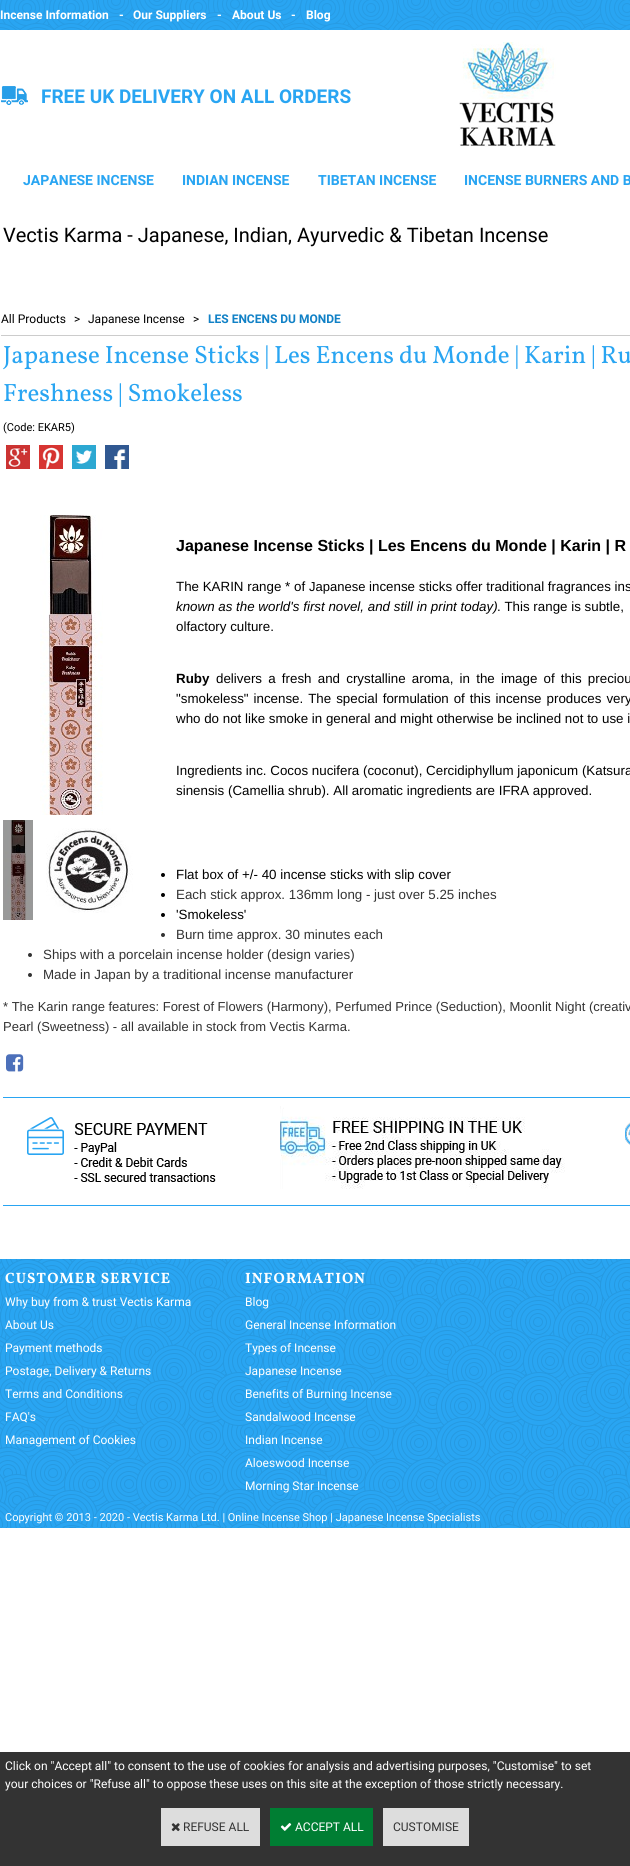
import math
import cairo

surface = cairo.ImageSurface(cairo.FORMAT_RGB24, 630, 1866)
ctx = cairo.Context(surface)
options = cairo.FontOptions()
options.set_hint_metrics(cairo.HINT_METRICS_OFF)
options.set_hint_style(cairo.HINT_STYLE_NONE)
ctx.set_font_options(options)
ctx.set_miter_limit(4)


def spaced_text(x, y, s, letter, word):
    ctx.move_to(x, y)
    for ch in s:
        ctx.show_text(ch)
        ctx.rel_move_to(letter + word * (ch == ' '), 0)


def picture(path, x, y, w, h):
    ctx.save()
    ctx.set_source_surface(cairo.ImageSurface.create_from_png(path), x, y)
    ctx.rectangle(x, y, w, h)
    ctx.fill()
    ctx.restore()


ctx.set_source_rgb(1, 1, 1)
ctx.paint()
picture("img1.png", 0, 0, 630, 30)
ctx.select_font_face("Heebo", cairo.FONT_SLANT_NORMAL, cairo.FONT_WEIGHT_BOLD)
ctx.set_font_size(12)
ctx.set_source_rgb(1, 1, 1)
ctx.move_to(0, 19)
ctx.show_text("Incense Information")
ctx.move_to(119, 19)
ctx.show_text("-")
ctx.move_to(133, 19)
ctx.show_text("Our Suppliers")
ctx.move_to(217, 19)
ctx.show_text("-")
ctx.move_to(232, 19)
ctx.show_text("About Us")
ctx.move_to(291, 19)
ctx.show_text("-")
ctx.move_to(306, 19)
ctx.show_text("Blog")
picture("img2.png", 1, 86, 27, 19)
ctx.set_font_size(19)
ctx.set_source_rgb(0.161, 0.647, 0.949)
ctx.move_to(41, 103)
ctx.show_text("FREE UK DELIVERY ON ALL ORDERS")
picture("img3.png", 459, 42, 97, 105)
ctx.set_font_size(14)
ctx.move_to(23, 185)
ctx.show_text("JAPANESE INCENSE")
ctx.move_to(182, 185)
ctx.show_text("INDIAN INCENSE")
ctx.move_to(318, 185)
ctx.show_text("TIBETAN INCENSE")
ctx.move_to(464, 185)
ctx.show_text("INCENSE BURNERS AND B")
ctx.select_font_face("Heebo")
ctx.set_font_size(20)
ctx.set_source_rgb(0, 0, 0)
ctx.move_to(3, 242)
ctx.show_text("Vectis Karma - Japanese, Indian, Ayurvedic & Tibetan Incense")
ctx.set_font_size(12)
ctx.move_to(1, 323)
ctx.show_text("All Products")
ctx.move_to(74, 323)
ctx.show_text(">")
ctx.move_to(88, 323)
ctx.show_text("Japanese Incense")
ctx.move_to(193, 323)
ctx.show_text(">")
ctx.select_font_face("Heebo", cairo.FONT_SLANT_NORMAL, cairo.FONT_WEIGHT_BOLD)
ctx.set_source_rgb(0.067, 0.506, 0.776)
ctx.move_to(208, 323)
ctx.show_text("LES ENCENS DU MONDE")
ctx.set_source_rgb(0.8, 0.8, 0.8)
ctx.rectangle(1, 335, 629, 1)
ctx.fill()
ctx.select_font_face("Vollkorn")
ctx.set_font_size(25)
ctx.set_source_rgb(0.161, 0.647, 0.949)
ctx.move_to(3, 363)
ctx.show_text("Japanese Incense Sticks | Les Encens du Monde | Karin | Ru")
ctx.move_to(3, 401)
ctx.show_text("Freshness | Smokeless")
ctx.select_font_face("Heebo")
ctx.set_font_size(11)
ctx.set_source_rgb(0, 0, 0)
ctx.move_to(3, 431)
ctx.show_text("(Code: EKAR5)")
picture("img4.png", 6, 445, 24, 24)
picture("img5.png", 39, 445, 24, 24)
picture("img6.png", 72, 445, 24, 24)
picture("img7.png", 105, 445, 24, 24)
picture("img8.png", 40, 515, 63, 300)
picture("img9.png", 3, 820, 30, 100)
picture("img10.png", 46, 828, 87, 85)
ctx.select_font_face("Liberation Sans", cairo.FONT_SLANT_NORMAL, cairo.FONT_WEIGHT_BOLD)
ctx.set_font_size(16)
ctx.move_to(176, 551)
ctx.show_text("Japanese Incense Sticks | Les Encens du Monde | Karin | R")
ctx.select_font_face("Liberation Sans")
ctx.set_font_size(13.35)
ctx.move_to(176, 591)
ctx.show_text("The KARIN range * of")
ctx.set_font_size(13)
ctx.move_to(309, 591)
ctx.show_text("Japanese")
ctx.set_font_size(13.35)
ctx.move_to(369, 591)
ctx.show_text("incense sticks offer traditional fragrances ins")
ctx.select_font_face("Liberation Sans", cairo.FONT_SLANT_ITALIC)
ctx.move_to(176, 611)
ctx.show_text("known as the world's first novel, and still in print today)")
ctx.select_font_face("Liberation Sans")
ctx.move_to(497, 611)
ctx.show_text(". This range is subtle,")
ctx.move_to(176, 631)
ctx.show_text("olfactory culture.")
ctx.select_font_face("Liberation Sans", cairo.FONT_SLANT_NORMAL, cairo.FONT_WEIGHT_BOLD)
ctx.move_to(176, 683)
ctx.show_text("Ruby")
ctx.select_font_face("Liberation Sans")
spaced_text(216, 683, "delivers a fresh and crystalline aroma, in the image of this preciou", 0, 2.5)
spaced_text(176, 703, "\"smokeless\" incense. The special formulation of this incense produces very", 0, 1.25)
ctx.move_to(176, 723)
ctx.show_text("who do not like smoke in general and might otherwise be inclined not to use i")
ctx.move_to(176, 775)
ctx.show_text("Ingredients inc. Cocos nucifera (coconut), Cercidiphyllum japonicum (Katsura")
ctx.move_to(176, 795)
ctx.show_text("sinensis (Camellia shrub). All aromatic ingredients are IFRA approved.")
ctx.new_path()
ctx.arc(163, 875, 2, 0, 2 * math.pi)
ctx.fill()
ctx.move_to(176, 879)
ctx.show_text("Flat box of +/- 40 incense sticks with slip cover")
ctx.new_path()
ctx.arc(163, 895, 2, 0, 2 * math.pi)
ctx.fill()
ctx.set_source_rgb(0.2, 0.2, 0.2)
ctx.move_to(176, 899)
ctx.show_text("Each stick approx. 136mm long - just over 5.25 inches")
ctx.set_source_rgb(0, 0, 0)
ctx.new_path()
ctx.arc(163, 915, 2, 0, 2 * math.pi)
ctx.fill()
ctx.move_to(176, 919)
ctx.show_text("'Smokeless'")
ctx.set_source_rgb(0.2, 0.2, 0.2)
ctx.new_path()
ctx.arc(163, 935, 2, 0, 2 * math.pi)
ctx.fill()
ctx.move_to(176, 939)
ctx.show_text("Burn time approx. 30 minutes each")
ctx.new_path()
ctx.arc(30, 955, 2, 0, 2 * math.pi)
ctx.fill()
ctx.move_to(43, 959)
ctx.show_text("Ships with a porcelain incense holder (design varies)")
ctx.new_path()
ctx.arc(30, 975, 2, 0, 2 * math.pi)
ctx.fill()
ctx.move_to(43, 979)
ctx.show_text("Made in Japan by a traditional incense manufacturer")
ctx.set_font_size(13)
ctx.move_to(3, 1011)
ctx.show_text("* The Karin range features: Forest of Flowers (Harmony), Perfumed Prince (Seduction), Moonlit Night (creativ")
ctx.move_to(3, 1031)
ctx.show_text("Pearl (Sweetness) - all available in stock from Vectis Karma.")
picture("img11.png", 6, 1054, 18, 18)
ctx.set_source_rgb(0.161, 0.647, 0.949)
ctx.rectangle(3, 1097, 627, 1)
ctx.fill()
ctx.rectangle(3, 1205, 627, 1)
ctx.fill()
picture("img12.png", 27, 1117, 189, 65)
picture("img13.png", 280, 1106, 285, 83)
picture("img14.png", 625, 1122, 5, 23)
picture("img15.png", 0, 1259, 630, 269)
ctx.select_font_face("Vollkorn", cairo.FONT_SLANT_NORMAL, cairo.FONT_WEIGHT_BOLD)
ctx.set_font_size(15)
ctx.set_source_rgb(1, 1, 1)
spaced_text(5, 1283, "CUSTOMER SERVICE", 1, 0)
spaced_text(245, 1283, "INFORMATION", 1, 0)
ctx.select_font_face("Heebo")
ctx.set_font_size(12)
ctx.move_to(5, 1306)
ctx.show_text("Why buy from & trust Vectis Karma")
ctx.move_to(245, 1306)
ctx.show_text("Blog")
ctx.move_to(5, 1329)
ctx.show_text("About Us")
ctx.move_to(245, 1329)
ctx.show_text("General Incense Information")
ctx.move_to(5, 1352)
ctx.show_text("Payment methods")
ctx.move_to(245, 1352)
ctx.show_text("Types of Incense")
ctx.move_to(5, 1375)
ctx.show_text("Postage, Delivery & Returns")
ctx.move_to(245, 1375)
ctx.show_text("Japanese Incense")
ctx.move_to(5, 1398)
ctx.show_text("Terms and Conditions")
ctx.move_to(245, 1398)
ctx.show_text("Benefits of Burning Incense")
ctx.move_to(5, 1421)
ctx.show_text("FAQ's")
ctx.move_to(245, 1421)
ctx.show_text("Sandalwood Incense")
ctx.move_to(5, 1444)
ctx.show_text("Management of Cookies")
ctx.move_to(245, 1444)
ctx.show_text("Indian Incense")
ctx.move_to(245, 1467)
ctx.show_text("Aloeswood Incense")
ctx.move_to(245, 1490)
ctx.show_text("Morning Star Incense")
ctx.set_font_size(11)
ctx.move_to(5, 1521)
ctx.show_text("Copyright © 2013 - 2020 - Vectis Karma Ltd. | Online Incense Shop | Japanese Incense Specialists")
ctx.set_source_rgb(0.2, 0.2, 0.2)
ctx.rectangle(0, 1752, 630, 114)
ctx.fill()
ctx.set_font_size(12)
ctx.set_source_rgb(1, 1, 1)
ctx.move_to(5, 1770)
ctx.show_text("Click on \"Accept all\" to consent to the use of cookies for analysis and advertising purposes, \"Customise\" to set")
ctx.move_to(5, 1788)
ctx.show_text("your choices or \"Refuse all\" to oppose these uses on this site at the exception of those strictly necessary.")
ctx.set_source_rgb(0.867, 0.867, 0.867)
ctx.rectangle(161, 1808, 99, 38)
ctx.fill()
picture("img16.png", 171, 1823, 9, 9)
ctx.set_source_rgb(0.2, 0.2, 0.2)
ctx.move_to(183, 1831)
ctx.show_text("REFUSE ALL")
ctx.set_source_rgb(0, 0.494, 0.2)
ctx.rectangle(270, 1808, 103, 38)
ctx.fill()
picture("img17.png", 280, 1823, 12, 8)
ctx.set_source_rgb(1, 1, 1)
ctx.move_to(295, 1831)
ctx.show_text("ACCEPT ALL")
ctx.set_source_rgb(0.867, 0.867, 0.867)
ctx.rectangle(383, 1808, 86, 38)
ctx.fill()
ctx.set_source_rgb(0.2, 0.2, 0.2)
ctx.move_to(393, 1831)
ctx.show_text("CUSTOMISE")
surface.write_to_png("page.png")
